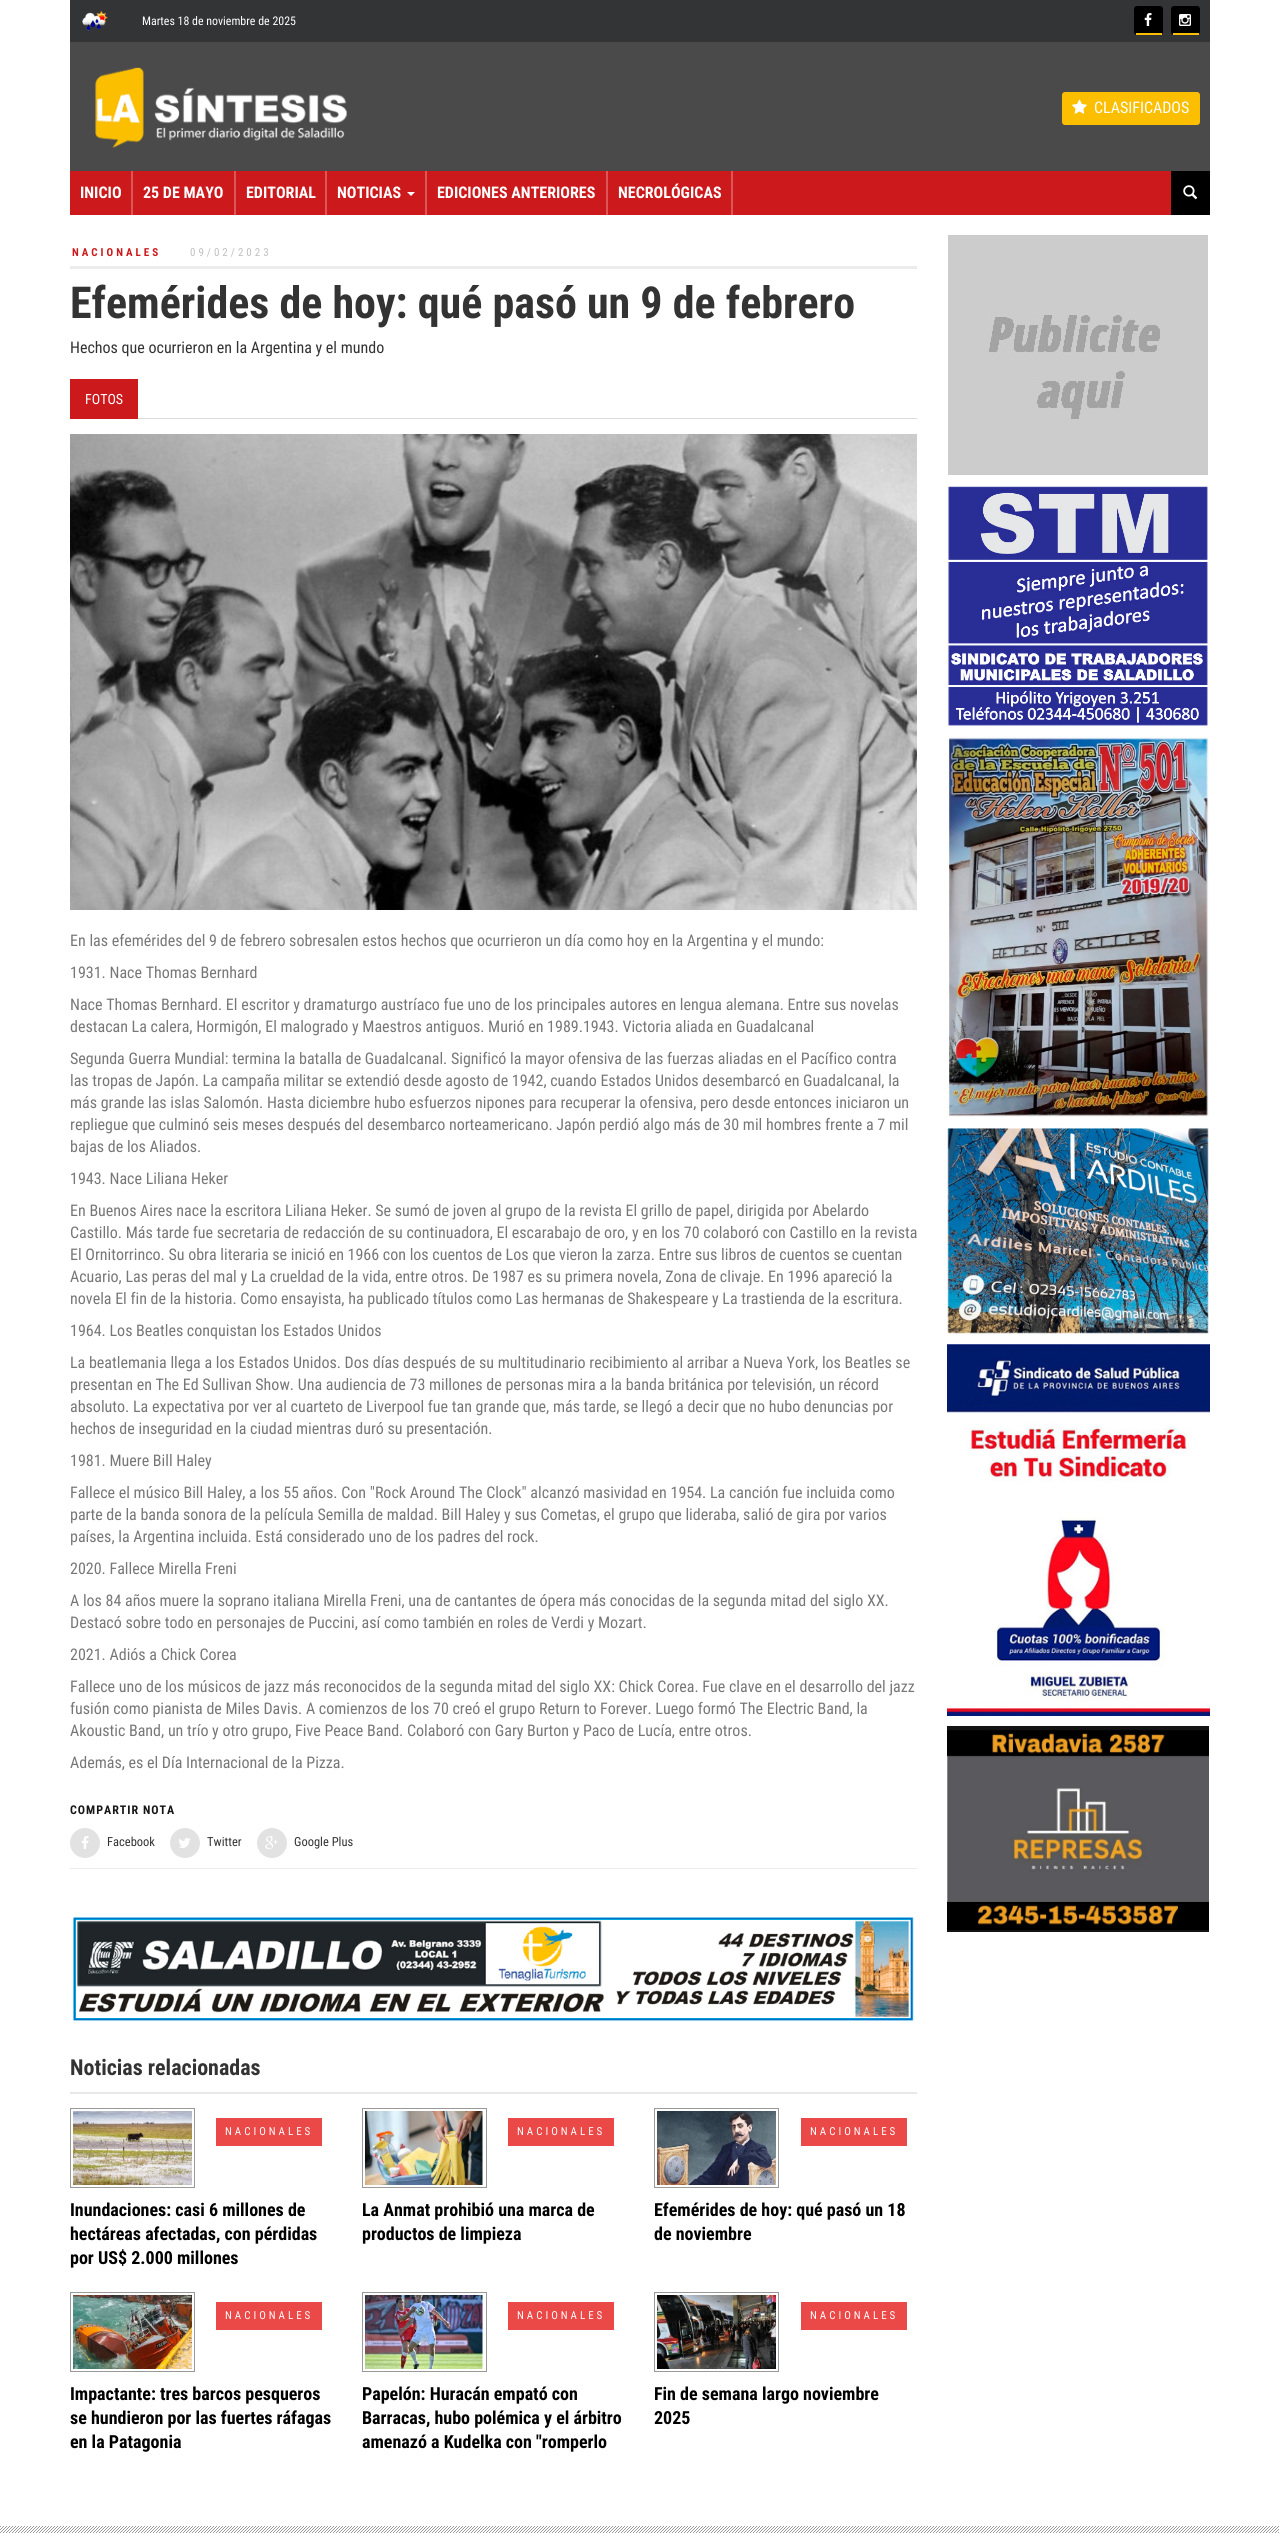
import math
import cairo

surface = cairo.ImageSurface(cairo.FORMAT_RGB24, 1279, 2533)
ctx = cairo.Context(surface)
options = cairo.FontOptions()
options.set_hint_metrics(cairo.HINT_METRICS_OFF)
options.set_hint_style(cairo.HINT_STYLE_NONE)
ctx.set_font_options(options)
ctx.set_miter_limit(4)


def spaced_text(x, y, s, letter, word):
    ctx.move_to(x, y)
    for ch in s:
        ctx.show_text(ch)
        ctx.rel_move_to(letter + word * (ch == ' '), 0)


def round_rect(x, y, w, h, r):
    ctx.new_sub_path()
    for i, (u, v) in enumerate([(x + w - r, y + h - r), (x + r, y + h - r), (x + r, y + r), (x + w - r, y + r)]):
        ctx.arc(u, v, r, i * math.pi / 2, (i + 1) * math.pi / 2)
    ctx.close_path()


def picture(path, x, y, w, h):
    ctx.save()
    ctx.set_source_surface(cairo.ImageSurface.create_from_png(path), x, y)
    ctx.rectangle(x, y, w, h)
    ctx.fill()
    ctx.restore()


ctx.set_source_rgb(1, 1, 1)
ctx.paint()
ctx.set_source_rgb(0.2, 0.204, 0.212)
ctx.rectangle(70, 0, 1140, 42)
ctx.fill()
picture("img1.png", 82, 11, 26, 20)
ctx.select_font_face("Roboto Condensed")
ctx.set_font_size(11.9)
ctx.set_source_rgb(1, 1, 1)
ctx.move_to(142, 25)
ctx.show_text("Martes 18 de noviembre de 2025")
ctx.set_source_rgb(0, 0, 0)
round_rect(1134, 6, 29, 29, 3)
ctx.fill()
ctx.set_source_rgb(0.984, 0.749, 0)
ctx.rectangle(1136, 33, 26, 2)
ctx.fill()
picture("img2.png", 1144, 13, 8, 13)
ctx.set_source_rgb(0, 0, 0)
round_rect(1171, 6, 29, 29, 3)
ctx.fill()
ctx.set_source_rgb(0.984, 0.749, 0)
ctx.rectangle(1173, 33, 26, 2)
ctx.fill()
picture("img3.png", 1179, 14, 12, 12)
ctx.set_source_rgb(0.29, 0.29, 0.29)
ctx.rectangle(70, 42, 1140, 129)
ctx.fill()
picture("img4.png", 95, 67, 252, 81)
ctx.set_source_rgb(0.984, 0.749, 0)
round_rect(1062, 92, 138, 33, 3)
ctx.fill()
picture("img5.png", 1072, 99, 15, 15)
ctx.set_font_size(16)
ctx.set_source_rgb(1, 1, 1)
ctx.move_to(1094, 113)
ctx.show_text("CLASIFICADOS")
ctx.set_source_rgb(0.8, 0.098, 0.11)
ctx.rectangle(70, 171, 1101, 44)
ctx.fill()
ctx.set_source_rgb(0.871, 0.333, 0.345)
ctx.rectangle(131, 171, 2, 44)
ctx.fill()
ctx.select_font_face("Roboto Condensed", cairo.FONT_SLANT_NORMAL, cairo.FONT_WEIGHT_BOLD)
ctx.set_source_rgb(1, 1, 1)
ctx.move_to(80, 198)
ctx.show_text("INICIO")
ctx.set_source_rgb(0.871, 0.333, 0.345)
ctx.rectangle(234, 171, 2, 44)
ctx.fill()
ctx.set_source_rgb(1, 1, 1)
ctx.move_to(143, 198)
ctx.show_text("25 DE MAYO")
ctx.set_source_rgb(0.871, 0.333, 0.345)
ctx.rectangle(325, 171, 2, 44)
ctx.fill()
ctx.set_source_rgb(1, 1, 1)
ctx.move_to(246, 198)
ctx.show_text("EDITORIAL")
ctx.set_source_rgb(0.871, 0.333, 0.345)
ctx.rectangle(425, 171, 2, 44)
ctx.fill()
ctx.set_source_rgb(1, 1, 1)
ctx.move_to(337, 198)
ctx.show_text("NOTICIAS")
ctx.new_path()
ctx.move_to(407, 192)
ctx.line_to(415, 192)
ctx.line_to(411, 196)
ctx.close_path()
ctx.fill()
ctx.set_source_rgb(0.871, 0.333, 0.345)
ctx.rectangle(606, 171, 2, 44)
ctx.fill()
ctx.set_source_rgb(1, 1, 1)
ctx.move_to(437, 198)
ctx.show_text("EDICIONES ANTERIORES")
ctx.set_source_rgb(0.871, 0.333, 0.345)
ctx.rectangle(731, 171, 2, 44)
ctx.fill()
ctx.set_source_rgb(1, 1, 1)
ctx.move_to(618, 198)
ctx.show_text("NECROLÓGICAS")
ctx.set_source_rgb(0, 0, 0)
ctx.rectangle(1171, 171, 39, 44)
ctx.fill()
picture("img6.png", 1183, 185, 15, 15)
ctx.set_source_rgb(0.925, 0.925, 0.925)
ctx.rectangle(70, 266, 847, 3)
ctx.fill()
ctx.set_font_size(11)
ctx.set_source_rgb(0.8, 0.098, 0.11)
spaced_text(72, 256, "NACIONALES", 3, 0)
ctx.select_font_face("Roboto Condensed")
ctx.set_source_rgb(0.749, 0.749, 0.749)
spaced_text(190, 256, "09/02/2023", 3, 0)
ctx.select_font_face("Roboto Condensed", cairo.FONT_SLANT_NORMAL, cairo.FONT_WEIGHT_BOLD)
ctx.set_font_size(44)
ctx.set_source_rgb(0.2, 0.2, 0.2)
ctx.move_to(70, 318)
ctx.show_text("Efemérides de hoy: qué pasó un 9 de febrero")
ctx.select_font_face("Roboto Condensed")
ctx.set_font_size(16)
ctx.move_to(70, 353)
ctx.show_text("Hechos que ocurrieron en la Argentina y el mundo")
ctx.set_source_rgb(0.867, 0.867, 0.867)
ctx.rectangle(138, 418, 779, 1)
ctx.fill()
ctx.set_source_rgb(0.8, 0.098, 0.11)
ctx.rectangle(70, 379, 68, 40)
ctx.fill()
ctx.set_font_size(14)
ctx.set_source_rgb(1, 1, 1)
ctx.move_to(85, 404)
ctx.show_text("FOTOS")
picture("img7.png", 70, 434, 847, 476)
ctx.set_font_size(16)
ctx.set_source_rgb(0.467, 0.467, 0.467)
ctx.move_to(70, 946)
ctx.show_text("En las efemérides del 9 de febrero sobresalen estos hechos que ocurrieron un día como hoy en la Argentina y el mundo:")
ctx.move_to(70, 978)
ctx.show_text("1931. Nace Thomas Bernhard")
ctx.move_to(70, 1010)
ctx.show_text("Nace Thomas Bernhard. El escritor y dramaturgo austríaco fue uno de los principales autores en lengua alemana. Entre sus novelas")
ctx.move_to(70, 1032)
ctx.show_text("destacan La calera, Hormigón, El malogrado y Maestros antiguos. Murió en 1989.1943. Victoria aliada en Guadalcanal")
ctx.move_to(70, 1064)
ctx.show_text("Segunda Guerra Mundial: termina la batalla de Guadalcanal. Significó la mayor ofensiva de las fuerzas aliadas en el Pacífico contra")
ctx.move_to(70, 1086)
ctx.show_text("las tropas de Japón. La campaña militar se extendió desde agosto de 1942, cuando Estados Unidos desembarcó en Guadalcanal, la")
ctx.move_to(70, 1108)
ctx.show_text("más grande las islas Salomón. Hasta diciembre hubo esfuerzos nipones para recuperar la ofensiva, pero desde entonces iniciaron un")
ctx.move_to(70, 1130)
ctx.show_text("repliegue que culminó seis meses después del desembarco norteamericano. Japón perdió algo más de 30 mil hombres frente a 7 mil")
ctx.move_to(70, 1152)
ctx.show_text("bajas de los Aliados.")
ctx.move_to(70, 1184)
ctx.show_text("1943. Nace Liliana Heker")
ctx.move_to(70, 1216)
ctx.show_text("En Buenos Aires nace la escritora Liliana Heker. Se sumó de joven al grupo de la revista El grillo de papel, dirigida por Abelardo")
ctx.move_to(70, 1238)
ctx.show_text("Castillo. Más tarde fue secretaria de redacción de su continuadora, El escarabajo de oro, y en los 70 colaboró con Castillo en la revista")
ctx.move_to(70, 1260)
ctx.show_text("El Ornitorrinco. Su obra literaria se inició en 1966 con los cuentos de Los que vieron la zarza. Entre sus libros de cuentos se cuentan")
ctx.move_to(70, 1282)
ctx.show_text("Acuario, Las peras del mal y La crueldad de la vida, entre otros. De 1987 es su primera novela, Zona de clivaje. En 1996 apareció la")
ctx.move_to(70, 1304)
ctx.show_text("novela El fin de la historia. Como ensayista, ha publicado títulos como Las hermanas de Shakespeare y La trastienda de la escritura.")
ctx.move_to(70, 1336)
ctx.show_text("1964. Los Beatles conquistan los Estados Unidos")
ctx.move_to(70, 1368)
ctx.show_text("La beatlemania llega a los Estados Unidos. Dos días después de su multitudinario recibimiento al arribar a Nueva York, los Beatles se")
ctx.move_to(70, 1390)
ctx.show_text("presentan en The Ed Sullivan Show. Una audiencia de 73 millones de personas mira a la banda británica por televisión, un récord")
ctx.move_to(70, 1412)
ctx.show_text("absoluto. La expectativa por ver al cuarteto de Liverpool fue tan grande que, más tarde, se llegó a decir que no hubo denuncias por")
ctx.move_to(70, 1434)
ctx.show_text("hechos de inseguridad en la ciudad mientras duró su presentación.")
ctx.move_to(70, 1466)
ctx.show_text("1981. Muere Bill Haley")
ctx.move_to(70, 1498)
ctx.show_text("Fallece el músico Bill Haley, a los 55 años. Con \"Rock Around The Clock\" alcanzó masividad en 1954. La canción fue incluida como")
ctx.move_to(70, 1520)
ctx.show_text("parte de la banda sonora de la película Semilla de maldad. Bill Haley y sus Cometas, el grupo que lideraba, salió de gira por varios")
ctx.move_to(70, 1542)
ctx.show_text("países, la Argentina incluida. Está considerado uno de los padres del rock.")
ctx.move_to(70, 1574)
ctx.show_text("2020. Fallece Mirella Freni")
ctx.move_to(70, 1606)
ctx.show_text("A los 84 años muere la soprano italiana Mirella Freni, una de cantantes de ópera más conocidas de la segunda mitad del siglo XX.")
ctx.move_to(70, 1628)
ctx.show_text("Destacó sobre todo en personajes de Puccini, así como también en roles de Verdi y Mozart.")
ctx.move_to(70, 1660)
ctx.show_text("2021. Adiós a Chick Corea")
ctx.move_to(70, 1692)
ctx.show_text("Fallece uno de los músicos de jazz más reconocidos de la segunda mitad del siglo XX: Chick Corea. Fue clave en el desarrollo del jazz")
ctx.move_to(70, 1714)
ctx.show_text("fusión como pianista de Miles Davis. A comienzos de los 70 creó el grupo Return to Forever. Luego formó The Electric Band, la")
ctx.move_to(70, 1736)
ctx.show_text("Akoustic Band, un trío y otro grupo, Five Peace Band. Colaboró con Gary Burton y Paco de Lucía, entre otros.")
ctx.move_to(70, 1768)
ctx.show_text("Además, es el Día Internacional de la Pizza.")
ctx.set_source_rgb(0.929, 0.929, 0.929)
ctx.rectangle(70, 1868, 847, 1)
ctx.fill()
ctx.select_font_face("Roboto Condensed", cairo.FONT_SLANT_NORMAL, cairo.FONT_WEIGHT_BOLD)
ctx.set_font_size(12)
ctx.set_source_rgb(0.086, 0.086, 0.086)
spaced_text(70, 1814, "COMPARTIR NOTA", 1, 0)
ctx.set_source_rgb(0.886, 0.886, 0.886)
ctx.new_path()
ctx.arc(85, 1843, 15, 0, 2 * math.pi)
ctx.fill()
picture("img8.png", 81, 1836, 8, 13)
ctx.select_font_face("Roboto Condensed")
ctx.set_font_size(12.5)
ctx.set_source_rgb(0.2, 0.2, 0.2)
ctx.move_to(107, 1846)
ctx.show_text("Facebook")
ctx.set_source_rgb(0.886, 0.886, 0.886)
ctx.new_path()
ctx.arc(185, 1843, 15, 0, 2 * math.pi)
ctx.fill()
picture("img9.png", 179, 1838, 12, 10)
ctx.set_source_rgb(0.2, 0.2, 0.2)
ctx.move_to(207, 1846)
ctx.show_text("Twitter")
ctx.set_source_rgb(0.886, 0.886, 0.886)
ctx.new_path()
ctx.arc(272, 1843, 15, 0, 2 * math.pi)
ctx.fill()
picture("img10.png", 265, 1836, 13, 13)
ctx.set_source_rgb(0.2, 0.2, 0.2)
ctx.move_to(294, 1846)
ctx.show_text("Google Plus")
picture("img11.png", 73, 1917, 841, 104)
ctx.select_font_face("Roboto Condensed", cairo.FONT_SLANT_NORMAL, cairo.FONT_WEIGHT_BOLD)
ctx.set_font_size(22)
ctx.move_to(70, 2075)
ctx.show_text("Noticias relacionadas")
ctx.set_source_rgb(0.91, 0.91, 0.91)
ctx.rectangle(70, 2092, 847, 2)
ctx.fill()
ctx.rectangle(70.5, 2108.5, 124, 79)
ctx.set_source_rgb(0.6, 0.6, 0.6)
ctx.set_line_width(1)
ctx.stroke()
picture("img12.png", 73, 2111, 119, 74)
ctx.set_source_rgb(0.918, 0.282, 0.282)
ctx.rectangle(216, 2118, 106, 28)
ctx.fill()
ctx.select_font_face("Roboto Condensed")
ctx.set_font_size(11)
ctx.set_source_rgb(1, 1, 1)
spaced_text(225, 2135, "NACIONALES", 3, 0)
ctx.select_font_face("Roboto Condensed", cairo.FONT_SLANT_NORMAL, cairo.FONT_WEIGHT_BOLD)
ctx.set_font_size(18)
ctx.set_source_rgb(0, 0, 0)
ctx.move_to(70, 2216)
ctx.show_text("Inundaciones: casi 6 millones de")
ctx.move_to(70, 2240)
ctx.show_text("hectáreas afectadas, con pérdidas")
ctx.move_to(70, 2264)
ctx.show_text("por US$ 2.000 millones")
ctx.rectangle(362.5, 2108.5, 124, 79)
ctx.set_source_rgb(0.6, 0.6, 0.6)
ctx.stroke()
picture("img13.png", 365, 2111, 119, 74)
ctx.set_source_rgb(0.918, 0.282, 0.282)
ctx.rectangle(508, 2118, 106, 28)
ctx.fill()
ctx.select_font_face("Roboto Condensed")
ctx.set_font_size(11)
ctx.set_source_rgb(1, 1, 1)
spaced_text(517, 2135, "NACIONALES", 3, 0)
ctx.select_font_face("Roboto Condensed", cairo.FONT_SLANT_NORMAL, cairo.FONT_WEIGHT_BOLD)
ctx.set_font_size(18)
ctx.set_source_rgb(0, 0, 0)
ctx.move_to(362, 2216)
ctx.show_text("La Anmat prohibió una marca de")
ctx.move_to(362, 2240)
ctx.show_text("productos de limpieza")
ctx.rectangle(654.5, 2108.5, 124, 79)
ctx.set_source_rgb(0.6, 0.6, 0.6)
ctx.stroke()
picture("img14.png", 657, 2111, 119, 74)
ctx.set_source_rgb(0.918, 0.282, 0.282)
ctx.rectangle(801, 2118, 106, 28)
ctx.fill()
ctx.select_font_face("Roboto Condensed")
ctx.set_font_size(11)
ctx.set_source_rgb(1, 1, 1)
spaced_text(810, 2135, "NACIONALES", 3, 0)
ctx.select_font_face("Roboto Condensed", cairo.FONT_SLANT_NORMAL, cairo.FONT_WEIGHT_BOLD)
ctx.set_font_size(18)
ctx.set_source_rgb(0, 0, 0)
ctx.move_to(654, 2216)
ctx.show_text("Efemérides de hoy: qué pasó un 18")
ctx.move_to(654, 2240)
ctx.show_text("de noviembre")
ctx.rectangle(70.5, 2292.5, 124, 79)
ctx.set_source_rgb(0.6, 0.6, 0.6)
ctx.stroke()
picture("img15.png", 73, 2295, 119, 74)
ctx.set_source_rgb(0.918, 0.282, 0.282)
ctx.rectangle(216, 2302, 106, 28)
ctx.fill()
ctx.select_font_face("Roboto Condensed")
ctx.set_font_size(11)
ctx.set_source_rgb(1, 1, 1)
spaced_text(225, 2319, "NACIONALES", 3, 0)
ctx.select_font_face("Roboto Condensed", cairo.FONT_SLANT_NORMAL, cairo.FONT_WEIGHT_BOLD)
ctx.set_font_size(18)
ctx.set_source_rgb(0, 0, 0)
ctx.move_to(70, 2400)
ctx.show_text("Impactante: tres barcos pesqueros")
ctx.move_to(70, 2424)
ctx.show_text("se hundieron por las fuertes ráfagas")
ctx.move_to(70, 2448)
ctx.show_text("en la Patagonia")
ctx.rectangle(362.5, 2292.5, 124, 79)
ctx.set_source_rgb(0.6, 0.6, 0.6)
ctx.stroke()
picture("img16.png", 365, 2295, 119, 74)
ctx.set_source_rgb(0.918, 0.282, 0.282)
ctx.rectangle(508, 2302, 106, 28)
ctx.fill()
ctx.select_font_face("Roboto Condensed")
ctx.set_font_size(11)
ctx.set_source_rgb(1, 1, 1)
spaced_text(517, 2319, "NACIONALES", 3, 0)
ctx.select_font_face("Roboto Condensed", cairo.FONT_SLANT_NORMAL, cairo.FONT_WEIGHT_BOLD)
ctx.set_font_size(18)
ctx.set_source_rgb(0, 0, 0)
ctx.move_to(362, 2400)
ctx.show_text("Papelón: Huracán empató con")
ctx.move_to(362, 2424)
ctx.show_text("Barracas, hubo polémica y el árbitro")
ctx.move_to(362, 2448)
ctx.show_text("amenazó a Kudelka con \"romperlo")
ctx.rectangle(654.5, 2292.5, 124, 79)
ctx.set_source_rgb(0.6, 0.6, 0.6)
ctx.stroke()
picture("img17.png", 657, 2295, 119, 74)
ctx.set_source_rgb(0.918, 0.282, 0.282)
ctx.rectangle(801, 2302, 106, 28)
ctx.fill()
ctx.select_font_face("Roboto Condensed")
ctx.set_font_size(11)
ctx.set_source_rgb(1, 1, 1)
spaced_text(810, 2319, "NACIONALES", 3, 0)
ctx.select_font_face("Roboto Condensed", cairo.FONT_SLANT_NORMAL, cairo.FONT_WEIGHT_BOLD)
ctx.set_font_size(18)
ctx.set_source_rgb(0, 0, 0)
ctx.move_to(654, 2400)
ctx.show_text("Fin de semana largo noviembre")
ctx.move_to(654, 2424)
ctx.show_text("2025")
picture("img18.png", 948, 235, 260, 240)
picture("img19.png", 947, 486, 261, 240)
picture("img20.png", 947, 737, 262, 380)
picture("img21.png", 947, 1127, 262, 207)
picture("img22.png", 947, 1344, 263, 372)
picture("img23.png", 947, 1726, 262, 206)
picture("img24.png", 0, 2526, 1279, 7)
surface.write_to_png("page.png")
